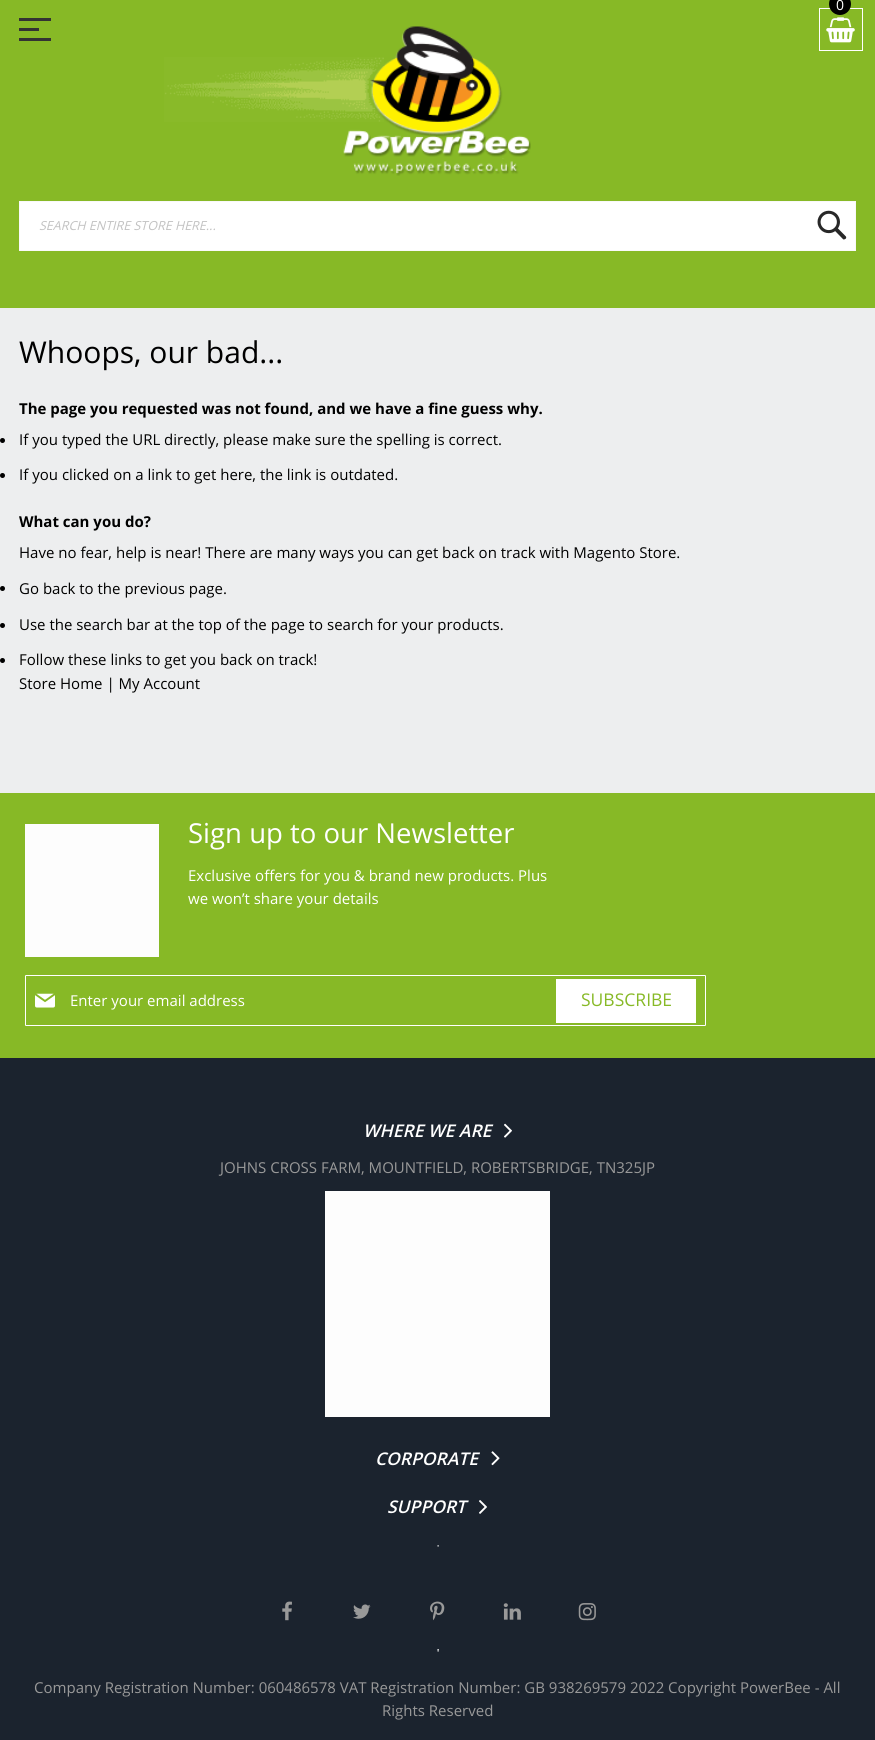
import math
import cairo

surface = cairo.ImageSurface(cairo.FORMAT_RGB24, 875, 1740)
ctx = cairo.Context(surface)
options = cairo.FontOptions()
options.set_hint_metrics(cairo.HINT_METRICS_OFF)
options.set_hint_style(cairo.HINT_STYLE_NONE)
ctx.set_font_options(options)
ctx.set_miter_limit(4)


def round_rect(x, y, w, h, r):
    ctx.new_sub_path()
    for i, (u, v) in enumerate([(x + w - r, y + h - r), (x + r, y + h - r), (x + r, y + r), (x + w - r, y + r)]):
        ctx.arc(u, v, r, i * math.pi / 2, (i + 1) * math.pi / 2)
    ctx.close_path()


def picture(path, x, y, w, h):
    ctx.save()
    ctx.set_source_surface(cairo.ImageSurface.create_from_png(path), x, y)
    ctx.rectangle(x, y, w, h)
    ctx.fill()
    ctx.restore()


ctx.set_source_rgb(0.929, 0.933, 0.937)
ctx.paint()
ctx.set_source_rgb(0.529, 0.725, 0.149)
ctx.rectangle(0, 0, 875, 308)
ctx.fill()
ctx.rectangle(819.5, 8.5, 43, 42)
ctx.set_source_rgb(1, 1, 1)
ctx.set_line_width(1)
ctx.stroke()
ctx.set_source_rgb(0, 0, 0)
ctx.arc(840, 4, 11, 0, 2 * math.pi)
ctx.fill()
ctx.select_font_face("Open Sans")
ctx.set_font_size(14)
ctx.set_source_rgb(1, 1, 1)
ctx.move_to(836, 10)
ctx.show_text("0")
picture("img1.png", 826, 17, 29, 26)
ctx.set_source_rgb(0.2, 0.2, 0.2)
ctx.rectangle(19, 18, 32, 3)
ctx.fill()
ctx.rectangle(19, 38, 32, 3)
ctx.fill()
ctx.rectangle(19, 28, 20, 3)
ctx.fill()
picture("img2.png", 164, 57, 220, 65)
picture("img3.png", 343, 26, 188, 150)
ctx.set_source_rgb(1, 1, 1)
ctx.rectangle(19.5, 201.5, 836, 49)
ctx.fill_preserve()
ctx.set_source_rgb(0.973, 0.973, 0.973)
ctx.stroke()
ctx.select_font_face("Open Sans", cairo.FONT_SLANT_ITALIC)
ctx.set_font_size(12.5)
ctx.set_source_rgb(0.761, 0.761, 0.761)
ctx.move_to(39, 230)
ctx.show_text("SEARCH ENTIRE STORE HERE...")
picture("img4.png", 817, 210, 30, 30)
ctx.select_font_face("Open Sans")
ctx.set_font_size(30)
ctx.set_source_rgb(0, 0, 0)
ctx.move_to(19, 363)
ctx.show_text("Whoops, our bad...")
ctx.select_font_face("Open Sans", cairo.FONT_SLANT_NORMAL, cairo.FONT_WEIGHT_BOLD)
ctx.set_font_size(15)
ctx.move_to(19, 414)
ctx.show_text("The page you requested was not found, and we have a fine guess why.")
ctx.new_path()
ctx.arc(2.5, 440.5, 2.5, 0, 2 * math.pi)
ctx.fill()
ctx.select_font_face("Open Sans")
ctx.move_to(19, 445)
ctx.show_text("If you typed the URL directly, please make sure the spelling is correct.")
ctx.new_path()
ctx.arc(2.5, 475.5, 2.5, 0, 2 * math.pi)
ctx.fill()
ctx.move_to(19, 480)
ctx.show_text("If you clicked on a link to get here, the link is outdated.")
ctx.select_font_face("Open Sans", cairo.FONT_SLANT_NORMAL, cairo.FONT_WEIGHT_BOLD)
ctx.move_to(19, 527)
ctx.show_text("What can you do?")
ctx.select_font_face("Open Sans")
ctx.move_to(19, 558)
ctx.show_text("Have no fear, help is near! There are many ways you can get back on track with Magento Store.")
ctx.new_path()
ctx.arc(2.5, 588.5, 2.5, 0, 2 * math.pi)
ctx.fill()
ctx.move_to(19, 594)
ctx.show_text("Go back to the previous page.")
ctx.new_path()
ctx.arc(2.5, 625.5, 2.5, 0, 2 * math.pi)
ctx.fill()
ctx.move_to(19, 630)
ctx.show_text("Use the search bar at the top of the page to search for your products.")
ctx.new_path()
ctx.arc(2.5, 660.5, 2.5, 0, 2 * math.pi)
ctx.fill()
ctx.move_to(19, 665)
ctx.show_text("Follow these links to get you back on track!")
ctx.move_to(19, 689)
ctx.show_text("Store Home | My Account")
ctx.set_source_rgb(0.106, 0.137, 0.18)
ctx.rectangle(0, 1058, 875, 682)
ctx.fill()
ctx.set_source_rgb(0.529, 0.725, 0.149)
ctx.rectangle(0, 793, 875, 265)
ctx.fill()
ctx.set_source_rgb(0.992, 0.992, 0.992)
ctx.rectangle(25, 824, 134, 133)
ctx.fill()
ctx.set_font_size(27.5)
ctx.set_source_rgb(1, 1, 1)
ctx.move_to(188, 843)
ctx.show_text("Sign up to our Newsletter")
ctx.set_font_size(15)
ctx.move_to(188, 881)
ctx.show_text("Exclusive offers for you & brand new products. Plus")
ctx.move_to(188, 904)
ctx.show_text("we won’t share your details")
round_rect(25.5, 975.5, 680, 50, 0.5)
ctx.stroke()
picture("img5.png", 35, 993, 20, 15)
ctx.move_to(70, 1006)
ctx.show_text("Enter your email address")
ctx.rectangle(556, 979, 140, 44)
ctx.fill()
ctx.set_font_size(17.5)
ctx.set_source_rgb(0.529, 0.725, 0.149)
ctx.move_to(581, 1006)
ctx.show_text("SUBSCRIBE")
ctx.select_font_face("Open Sans SemiBold", cairo.FONT_SLANT_ITALIC)
ctx.set_source_rgb(1, 1, 1)
ctx.move_to(363, 1137)
ctx.show_text("WHERE WE ARE")
picture("img6.png", 504, 1123, 8, 15)
ctx.select_font_face("Open Sans")
ctx.set_font_size(15)
ctx.set_source_rgb(0.6, 0.6, 0.6)
ctx.move_to(220, 1173)
ctx.show_text("JOHNS CROSS FARM, MOUNTFIELD, ROBERTSBRIDGE, TN325JP")
ctx.set_source_rgb(0.992, 0.992, 0.992)
ctx.rectangle(325, 1191, 225, 226)
ctx.fill()
ctx.select_font_face("Open Sans SemiBold", cairo.FONT_SLANT_ITALIC)
ctx.set_font_size(17.5)
ctx.set_source_rgb(1, 1, 1)
ctx.move_to(375, 1465)
ctx.show_text("CORPORATE")
picture("img7.png", 491, 1451, 9, 15)
ctx.move_to(387, 1513)
ctx.show_text("SUPPORT")
picture("img8.png", 479, 1500, 8, 14)
picture("img9.png", 437, 1545, 2, 2)
picture("img10.png", 282, 1601, 10, 20)
picture("img11.png", 353, 1604, 18, 15)
picture("img12.png", 430, 1601, 15, 20)
picture("img13.png", 503, 1603, 18, 17)
picture("img14.png", 578, 1603, 18, 18)
picture("img15.png", 437, 1649, 2, 2)
picture("img16.png", 437, 1650, 2, 2)
ctx.select_font_face("Open Sans")
ctx.set_font_size(15)
ctx.set_source_rgb(0.6, 0.6, 0.6)
ctx.move_to(34, 1693)
ctx.show_text("Company Registration Number: 060486578 VAT Registration Number: GB 938269579 2022 Copyright PowerBee - All")
ctx.move_to(382, 1716)
ctx.show_text("Rights Reserved")
surface.write_to_png("page.png")
